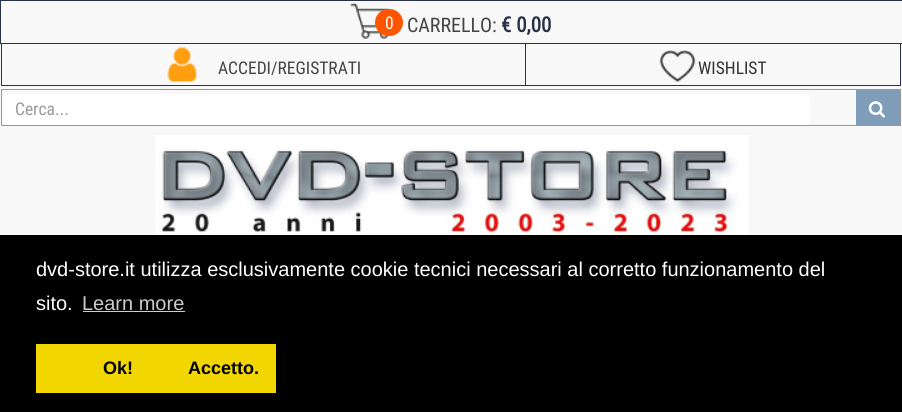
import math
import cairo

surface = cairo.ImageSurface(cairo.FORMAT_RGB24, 902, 412)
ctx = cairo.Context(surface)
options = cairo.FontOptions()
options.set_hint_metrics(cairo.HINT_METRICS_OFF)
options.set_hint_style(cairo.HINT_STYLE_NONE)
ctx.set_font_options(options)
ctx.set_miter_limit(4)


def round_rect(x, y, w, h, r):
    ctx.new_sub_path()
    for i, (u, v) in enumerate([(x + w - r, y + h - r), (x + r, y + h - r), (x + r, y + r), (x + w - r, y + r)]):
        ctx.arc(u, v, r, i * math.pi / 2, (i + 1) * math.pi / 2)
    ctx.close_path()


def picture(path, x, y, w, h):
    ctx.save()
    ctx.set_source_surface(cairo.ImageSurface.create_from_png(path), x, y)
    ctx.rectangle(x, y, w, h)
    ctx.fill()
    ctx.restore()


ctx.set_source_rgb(0.969, 0.969, 0.969)
ctx.paint()
ctx.rectangle(0.5, 0.5, 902, 43)
ctx.set_source_rgb(0.157, 0.192, 0.282)
ctx.set_line_width(1)
ctx.stroke()
picture("img1.png", 350, 3, 40, 36)
ctx.set_source_rgb(1, 0.333, 0.004)
round_rect(375, 9, 28, 27, 13.5)
ctx.fill()
ctx.select_font_face("Roboto Condensed")
ctx.set_font_size(17.5)
ctx.set_source_rgb(1, 1, 1)
ctx.move_to(385, 29)
ctx.show_text("0")
ctx.set_font_size(20)
ctx.set_source_rgb(0.267, 0.267, 0.267)
ctx.move_to(407, 32)
ctx.show_text("CARRELLO:")
ctx.select_font_face("Roboto Condensed", cairo.FONT_SLANT_NORMAL, cairo.FONT_WEIGHT_BOLD)
ctx.set_font_size(21)
ctx.set_source_rgb(0.157, 0.192, 0.282)
ctx.move_to(501, 32)
ctx.show_text("€ 0,00")
ctx.rectangle(525, 44, 1, 42)
ctx.fill()
ctx.rectangle(1, 85, 525, 1)
ctx.fill()
ctx.rectangle(1, 44, 1, 42)
ctx.fill()
picture("img2.png", 167, 47, 30, 36)
ctx.select_font_face("Roboto Condensed")
ctx.set_font_size(17.5)
ctx.set_source_rgb(0.267, 0.267, 0.267)
ctx.move_to(218, 74)
ctx.show_text("ACCEDI/REGISTRATI")
ctx.set_source_rgb(0.157, 0.192, 0.282)
ctx.rectangle(900, 44, 1, 42)
ctx.fill()
ctx.rectangle(526, 85, 375, 1)
ctx.fill()
picture("img3.png", 659, 50, 37, 33)
ctx.set_source_rgb(0.2, 0.2, 0.2)
ctx.move_to(698, 74)
ctx.show_text("WISHLIST")
ctx.rectangle(1.5, 89.5, 899, 36)
ctx.set_source_rgb(0.6, 0.6, 0.6)
ctx.stroke()
ctx.set_source_rgb(1, 1, 1)
round_rect(3, 94, 807, 31, 5)
ctx.fill()
ctx.set_source_rgb(0.6, 0.6, 0.6)
ctx.move_to(15, 115)
ctx.show_text("Cerca...")
ctx.set_source_rgb(0.498, 0.616, 0.725)
ctx.rectangle(856, 90, 44, 35)
ctx.fill()
picture("img4.png", 868, 101, 17, 17)
picture("img5.png", 155, 135, 594, 100)
ctx.set_source_rgb(0, 0, 0)
ctx.rectangle(0, 235, 902, 177)
ctx.fill()
ctx.select_font_face("Liberation Sans")
ctx.set_font_size(20)
ctx.set_source_rgb(1, 1, 1)
ctx.move_to(36, 276)
ctx.show_text("dvd-store.it utilizza esclusivamente cookie tecnici necessari al corretto funzionamento del")
ctx.move_to(36, 310)
ctx.show_text("sito.")
ctx.set_source_rgb(0.8, 0.8, 0.8)
ctx.move_to(82, 310)
ctx.show_text("Learn more")
ctx.rectangle(83, 311, 102, 1)
ctx.fill()
ctx.set_source_rgb(0.945, 0.839, 0)
ctx.rectangle(36, 344, 240, 49)
ctx.fill()
ctx.select_font_face("Liberation Sans", cairo.FONT_SLANT_NORMAL, cairo.FONT_WEIGHT_BOLD)
ctx.set_font_size(18)
ctx.set_source_rgb(0, 0, 0)
ctx.move_to(103, 374)
ctx.show_text("Ok!           Accetto.")
surface.write_to_png("page.png")
